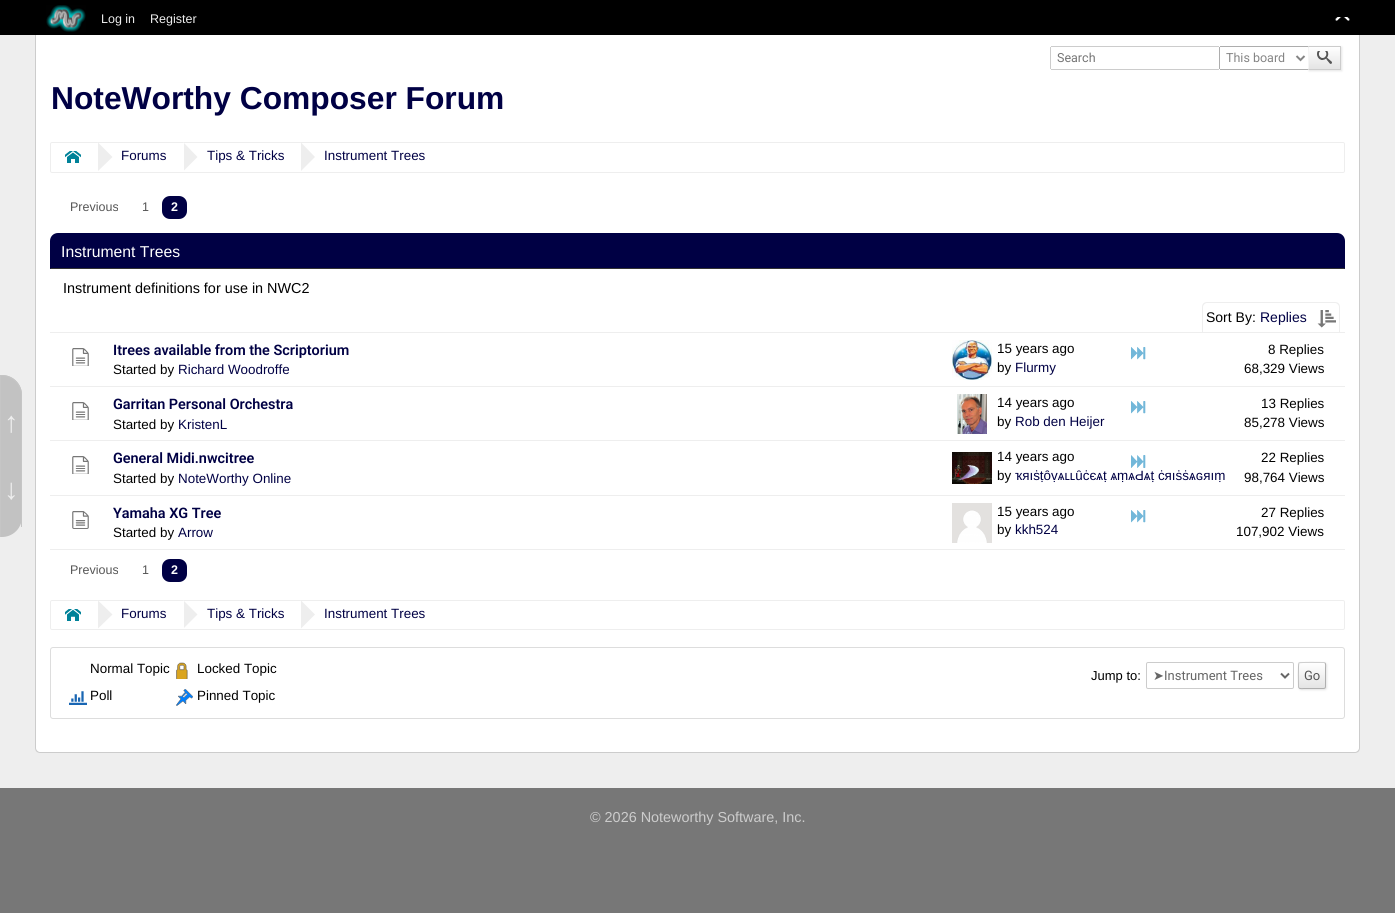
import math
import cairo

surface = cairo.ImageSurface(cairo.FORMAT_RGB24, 1395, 913)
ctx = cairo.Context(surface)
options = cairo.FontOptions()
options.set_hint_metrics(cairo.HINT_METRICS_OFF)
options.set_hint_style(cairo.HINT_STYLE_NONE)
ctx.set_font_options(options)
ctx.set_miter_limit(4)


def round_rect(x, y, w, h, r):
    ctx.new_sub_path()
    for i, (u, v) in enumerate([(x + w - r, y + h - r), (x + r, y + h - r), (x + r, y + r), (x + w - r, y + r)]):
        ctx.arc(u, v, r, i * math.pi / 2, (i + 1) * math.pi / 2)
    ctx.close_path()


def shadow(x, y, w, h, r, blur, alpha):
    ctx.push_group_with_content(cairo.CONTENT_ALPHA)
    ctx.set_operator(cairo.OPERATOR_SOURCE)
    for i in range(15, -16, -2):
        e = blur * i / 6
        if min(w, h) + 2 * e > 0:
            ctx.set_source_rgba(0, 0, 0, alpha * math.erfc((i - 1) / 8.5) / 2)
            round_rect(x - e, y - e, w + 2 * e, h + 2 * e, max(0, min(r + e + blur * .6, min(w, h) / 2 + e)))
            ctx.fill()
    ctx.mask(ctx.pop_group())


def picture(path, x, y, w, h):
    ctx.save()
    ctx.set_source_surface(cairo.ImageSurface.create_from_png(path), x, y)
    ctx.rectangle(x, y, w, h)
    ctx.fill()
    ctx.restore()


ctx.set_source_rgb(0.467, 0.467, 0.467)
ctx.paint()
ctx.set_source_rgb(0.933, 0.933, 0.933)
ctx.rectangle(0, 35, 1395, 753)
ctx.fill()
ctx.set_source_rgb(0, 0, 0)
ctx.rectangle(0, 0, 1395, 35)
ctx.fill()
picture("img1.png", 46, 5, 40, 27)
ctx.select_font_face("Liberation Sans")
ctx.set_font_size(12.5)
ctx.set_source_rgb(0.933, 0.933, 0.933)
ctx.move_to(101, 23)
ctx.show_text("Log in")
ctx.move_to(150, 23)
ctx.show_text("Register")
picture("img2.png", 1335, 17, 15, 4)
ctx.set_source_rgb(1, 1, 1)
ctx.rectangle(36, 35, 1323, 86)
ctx.fill()
ctx.set_source_rgb(0.8, 0.8, 0.8)
ctx.rectangle(1359, 35, 1, 86)
ctx.fill()
ctx.rectangle(35, 35, 1, 86)
ctx.fill()
ctx.rectangle(1051, 46, 168, 1)
ctx.fill()
ctx.rectangle(1051, 69, 168, 1)
ctx.fill()
ctx.rectangle(1050, 47, 1, 22)
ctx.fill()
ctx.select_font_face("Roboto")
ctx.set_source_rgb(0.459, 0.459, 0.459)
ctx.move_to(1057, 62)
ctx.show_text("Search")
ctx.set_source_rgb(0.898, 0.898, 0.898)
shadow(1309, 47, 33, 24, 0, 1, 1)
gradient = cairo.LinearGradient(1325, 47, 1325, 69)
gradient.add_color_stop_rgba(0, 1, 1, 1, 1)
gradient.add_color_stop_rgba(1, 0.894, 0.894, 0.894, 1)
ctx.set_source(gradient)
ctx.rectangle(1309, 47, 31, 22)
ctx.fill()
ctx.rectangle(1308.5, 46.5, 32, 23)
ctx.set_source_rgb(0.8, 0.8, 0.8)
ctx.set_line_width(1)
ctx.stroke()
ctx.set_source_rgba(1, 1, 1, 0.8)
round_rect(1219, 46, 90, 24, 2)
ctx.fill()
ctx.set_source_rgb(0.678, 0.678, 0.678)
ctx.rectangle(1220, 46, 88, 1)
ctx.fill()
ctx.rectangle(1220, 69, 88, 1)
ctx.fill()
ctx.rectangle(1219, 47, 1, 22)
ctx.fill()
ctx.new_path()
ctx.move_to(1296.5, 56)
ctx.line_to(1300.5, 60)
ctx.line_to(1304.5, 56)
ctx.set_source_rgb(0.522, 0.522, 0.522)
ctx.set_line_width(2)
ctx.stroke()
ctx.move_to(1226, 62)
ctx.show_text("This board")
picture("img3.png", 1317, 51, 15, 13)
ctx.select_font_face("Liberation Sans", cairo.FONT_SLANT_NORMAL, cairo.FONT_WEIGHT_BOLD)
ctx.set_font_size(31.75)
ctx.set_source_rgb(0, 0, 0.267)
ctx.move_to(51, 109)
ctx.show_text("NoteWorthy Composer Forum")
ctx.set_source_rgb(0.761, 0.761, 0.761)
ctx.new_path()
ctx.move_to(0, 375)
ctx.line_to(2, 375)
ctx.curve_to(13, 375, 22, 384, 22, 395)
ctx.line_to(22, 457)
ctx.line_to(0, 457)
ctx.close_path()
ctx.fill()
ctx.set_source_rgb(0.773, 0.773, 0.773)
ctx.set_fill_rule(cairo.FILL_RULE_EVEN_ODD)
ctx.new_path()
ctx.move_to(0, 375)
ctx.line_to(2, 375)
ctx.curve_to(13, 375, 22, 384, 22, 395)
ctx.line_to(22, 457)
ctx.line_to(0, 457)
ctx.close_path()
ctx.move_to(1, 376)
ctx.line_to(2, 376)
ctx.curve_to(12, 376, 21, 385, 21, 395)
ctx.line_to(21, 457)
ctx.line_to(1, 457)
ctx.close_path()
ctx.fill()
ctx.set_font_size(29)
ctx.set_source_rgb(0.933, 0.933, 0.933)
ctx.move_to(4, 432)
ctx.show_text("↑")
ctx.set_source_rgb(1, 1, 1)
ctx.new_path()
ctx.move_to(35, 121)
ctx.line_to(1360, 121)
ctx.line_to(1360, 748)
ctx.curve_to(1360, 751, 1358, 753, 1355, 753)
ctx.line_to(40, 753)
ctx.curve_to(37, 753, 35, 751, 35, 748)
ctx.close_path()
ctx.fill()
ctx.set_source_rgb(0.8, 0.8, 0.8)
ctx.new_path()
ctx.move_to(35, 121)
ctx.line_to(1360, 121)
ctx.line_to(1360, 748)
ctx.curve_to(1360, 751, 1358, 753, 1355, 753)
ctx.line_to(40, 753)
ctx.curve_to(37, 753, 35, 751, 35, 748)
ctx.close_path()
ctx.move_to(36, 121)
ctx.line_to(1359, 121)
ctx.line_to(1359, 748)
ctx.curve_to(1359, 750, 1357, 752, 1355, 752)
ctx.line_to(40, 752)
ctx.curve_to(38, 752, 36, 750, 36, 748)
ctx.close_path()
ctx.fill()
round_rect(50.5, 142.5, 1294, 30, 1.5)
ctx.set_source_rgb(0.933, 0.933, 0.933)
ctx.set_line_width(1)
ctx.stroke()
picture("img4.png", 65, 151, 16, 12)
gradient = cairo.LinearGradient(84, 157, 112, 157)
gradient.add_color_stop_rgba(0, 1, 1, 1, 1)
gradient.add_color_stop_rgba(0.5, 1, 1, 1, 1)
gradient.add_color_stop_rgba(0.5, 0.933, 0.933, 0.933, 1)
gradient.add_color_stop_rgba(1, 0.933, 0.933, 0.933, 1)
ctx.set_source(gradient)
ctx.set_fill_rule(cairo.FILL_RULE_WINDING)
ctx.new_path()
ctx.move_to(98, 142.5)
ctx.line_to(112.5, 157)
ctx.line_to(98, 171)
ctx.line_to(84, 157)
ctx.close_path()
ctx.fill()
ctx.select_font_face("Liberation Sans")
ctx.set_font_size(13.4)
ctx.set_source_rgb(0, 0, 0.267)
ctx.move_to(121, 160)
ctx.show_text("Forums")
gradient = cairo.LinearGradient(169, 157, 198, 157)
gradient.add_color_stop_rgba(0, 1, 1, 1, 1)
gradient.add_color_stop_rgba(0.5, 1, 1, 1, 1)
gradient.add_color_stop_rgba(0.5, 0.933, 0.933, 0.933, 1)
gradient.add_color_stop_rgba(1, 0.933, 0.933, 0.933, 1)
ctx.set_source(gradient)
ctx.new_path()
ctx.move_to(183.5, 142.5)
ctx.line_to(197.5, 157)
ctx.line_to(183.5, 171)
ctx.line_to(169.5, 157)
ctx.close_path()
ctx.fill()
ctx.set_source_rgb(0, 0, 0.267)
ctx.move_to(207, 160)
ctx.show_text("Tips & Tricks")
gradient = cairo.LinearGradient(287, 157, 315, 157)
gradient.add_color_stop_rgba(0, 1, 1, 1, 1)
gradient.add_color_stop_rgba(0.5, 1, 1, 1, 1)
gradient.add_color_stop_rgba(0.5, 0.933, 0.933, 0.933, 1)
gradient.add_color_stop_rgba(1, 0.933, 0.933, 0.933, 1)
ctx.set_source(gradient)
ctx.new_path()
ctx.move_to(301, 142.5)
ctx.line_to(315, 157)
ctx.line_to(301, 171)
ctx.line_to(286.5, 157)
ctx.close_path()
ctx.fill()
ctx.set_source_rgb(0, 0, 0.267)
ctx.move_to(324, 160)
ctx.show_text("Instrument Trees")
ctx.set_font_size(12.5)
ctx.set_source_rgb(0.333, 0.333, 0.333)
ctx.move_to(70, 211)
ctx.show_text("Previous")
ctx.move_to(142, 211)
ctx.show_text("1")
ctx.set_source_rgb(0, 0, 0.267)
round_rect(162, 196, 25, 23, 8)
ctx.fill()
ctx.select_font_face("Liberation Sans", cairo.FONT_SLANT_NORMAL, cairo.FONT_WEIGHT_BOLD)
ctx.set_source_rgb(1, 1, 1)
ctx.move_to(171, 211)
ctx.show_text("2")
ctx.set_source_rgb(0, 0, 0.267)
ctx.new_path()
ctx.move_to(58, 233)
ctx.line_to(1337, 233)
ctx.curve_to(1341.5, 233, 1345, 236.5, 1345, 241)
ctx.line_to(1345, 269)
ctx.line_to(50, 269)
ctx.line_to(50, 241)
ctx.curve_to(50, 236.5, 53.5, 233, 58, 233)
ctx.close_path()
ctx.fill()
ctx.set_source_rgb(0.2, 0.2, 0.2)
ctx.new_path()
ctx.move_to(1345, 269)
ctx.line_to(1344, 268)
ctx.line_to(51, 268)
ctx.line_to(50, 269)
ctx.close_path()
ctx.fill()
ctx.select_font_face("Liberation Sans")
ctx.set_font_size(15.75)
ctx.set_source_rgb(1, 1, 1)
ctx.move_to(61, 257)
ctx.show_text("Instrument Trees")
ctx.set_font_size(14.4)
ctx.set_source_rgb(0, 0, 0)
ctx.move_to(63, 293)
ctx.show_text("Instrument definitions for use in NWC2")
ctx.set_source_rgb(0.933, 0.933, 0.933)
ctx.rectangle(50, 332, 1295, 1)
ctx.fill()
ctx.set_fill_rule(cairo.FILL_RULE_EVEN_ODD)
ctx.new_path()
ctx.move_to(1207, 302)
ctx.line_to(1335, 302)
ctx.curve_to(1338, 302, 1340, 304, 1340, 307)
ctx.line_to(1340, 333)
ctx.line_to(1202, 333)
ctx.line_to(1202, 307)
ctx.curve_to(1202, 304, 1204, 302, 1207, 302)
ctx.close_path()
ctx.move_to(1207, 303)
ctx.line_to(1335, 303)
ctx.curve_to(1337, 303, 1339, 305, 1339, 307)
ctx.line_to(1339, 333)
ctx.line_to(1203, 333)
ctx.line_to(1203, 307)
ctx.curve_to(1203, 305, 1205, 303, 1207, 303)
ctx.close_path()
ctx.fill()
ctx.set_font_size(14)
ctx.set_source_rgb(0, 0, 0)
ctx.move_to(1206, 322)
ctx.show_text("Sort By:")
ctx.set_source_rgb(0, 0, 0.267)
ctx.move_to(1260, 322)
ctx.show_text("Replies")
picture("img5.png", 1317, 310, 19, 18)
picture("img6.png", 72, 348, 17, 18)
ctx.select_font_face("Roboto SemiBold")
ctx.set_font_size(14.4)
ctx.move_to(113, 355)
ctx.show_text("Itrees available from the Scriptorium")
ctx.select_font_face("Liberation Sans")
ctx.set_font_size(13.4)
ctx.set_source_rgb(0, 0, 0)
ctx.move_to(113, 374)
ctx.show_text("Started by")
ctx.set_source_rgb(0, 0, 0.267)
ctx.move_to(178, 374)
ctx.show_text("Richard Woodroffe")
picture("img7.png", 952, 340, 40, 40)
ctx.set_source_rgb(0, 0, 0)
ctx.move_to(997, 353)
ctx.show_text("15 years ago")
picture("img8.png", 1131, 347, 15, 13)
ctx.move_to(997, 372)
ctx.show_text("by")
ctx.set_source_rgb(0, 0, 0.267)
ctx.move_to(1015, 372)
ctx.show_text("Flurmy")
ctx.set_source_rgb(0, 0, 0)
ctx.move_to(1268, 354)
ctx.show_text("8 Replies")
ctx.move_to(1244, 373)
ctx.show_text("68,329 Views")
ctx.set_source_rgb(0.933, 0.933, 0.933)
ctx.rectangle(50, 386, 1295, 1)
ctx.fill()
picture("img6.png", 72, 402, 17, 18)
ctx.select_font_face("Roboto SemiBold")
ctx.set_font_size(14.4)
ctx.set_source_rgb(0, 0, 0.267)
ctx.move_to(113, 409)
ctx.show_text("Garritan Personal Orchestra")
ctx.select_font_face("Liberation Sans")
ctx.set_font_size(13.4)
ctx.set_source_rgb(0, 0, 0)
ctx.move_to(113, 429)
ctx.show_text("Started by")
ctx.set_source_rgb(0, 0, 0.267)
ctx.move_to(178, 429)
ctx.show_text("KristenL")
picture("img9.png", 957, 394, 30, 40)
ctx.set_source_rgb(0, 0, 0)
ctx.move_to(997, 407)
ctx.show_text("14 years ago")
picture("img8.png", 1131, 401, 15, 13)
ctx.move_to(997, 426)
ctx.show_text("by")
ctx.set_source_rgb(0, 0, 0.267)
ctx.move_to(1015, 426)
ctx.show_text("Rob den Heijer")
ctx.set_source_rgb(0, 0, 0)
ctx.move_to(1261, 408)
ctx.show_text("13 Replies")
ctx.move_to(1244, 427)
ctx.show_text("85,278 Views")
ctx.set_source_rgb(0.933, 0.933, 0.933)
ctx.rectangle(50, 440, 1295, 1)
ctx.fill()
picture("img6.png", 72, 456, 17, 18)
ctx.select_font_face("Roboto SemiBold")
ctx.set_font_size(14.4)
ctx.set_source_rgb(0, 0, 0.267)
ctx.move_to(113, 463)
ctx.show_text("General Midi.nwcitree")
ctx.select_font_face("Liberation Sans")
ctx.set_font_size(13.4)
ctx.set_source_rgb(0, 0, 0)
ctx.move_to(113, 483)
ctx.show_text("Started by")
ctx.set_source_rgb(0, 0, 0.267)
ctx.move_to(178, 483)
ctx.show_text("NoteWorthy Online")
picture("img10.png", 952, 452, 40, 32)
ctx.set_source_rgb(0, 0, 0)
ctx.move_to(997, 461)
ctx.show_text("14 years ago")
picture("img11.png", 1131, 455, 15, 13)
ctx.move_to(997, 480)
ctx.show_text("by")
ctx.set_source_rgb(0, 0, 0.267)
ctx.move_to(1015, 480)
ctx.show_text("ҡяıṡṭȏṿѧʟʟȗċєѧṭ ѧṃѧԀѧṭ ċяıṡṡѧɢяıṃ")
ctx.set_source_rgb(0, 0, 0)
ctx.move_to(1261, 462)
ctx.show_text("22 Replies")
ctx.move_to(1244, 482)
ctx.show_text("98,764 Views")
ctx.set_source_rgb(0.933, 0.933, 0.933)
ctx.rectangle(50, 495, 1295, 1)
ctx.fill()
ctx.rectangle(50, 549, 1295, 1)
ctx.fill()
picture("img12.png", 72, 511, 17, 18)
ctx.select_font_face("Roboto SemiBold")
ctx.set_font_size(14.4)
ctx.set_source_rgb(0, 0, 0.267)
ctx.move_to(113, 518)
ctx.show_text("Yamaha XG Tree")
ctx.select_font_face("Liberation Sans")
ctx.set_font_size(13.4)
ctx.set_source_rgb(0, 0, 0)
ctx.move_to(113, 537)
ctx.show_text("Started by")
ctx.set_source_rgb(0, 0, 0.267)
ctx.move_to(178, 537)
ctx.show_text("Arrow")
picture("img13.png", 952, 503, 40, 40)
ctx.set_source_rgb(0, 0, 0)
ctx.move_to(997, 516)
ctx.show_text("15 years ago")
picture("img8.png", 1131, 510, 15, 13)
ctx.move_to(997, 534)
ctx.show_text("by")
ctx.set_source_rgb(0, 0, 0.267)
ctx.move_to(1015, 534)
ctx.show_text("kkh524")
ctx.set_source_rgb(0, 0, 0)
ctx.move_to(1261, 517)
ctx.show_text("27 Replies")
ctx.move_to(1236, 536)
ctx.show_text("107,902 Views")
ctx.set_font_size(12.5)
ctx.set_source_rgb(0.333, 0.333, 0.333)
ctx.move_to(70, 574)
ctx.show_text("Previous")
ctx.move_to(142, 574)
ctx.show_text("1")
ctx.set_source_rgb(0, 0, 0.267)
round_rect(162, 559, 25, 23, 8)
ctx.fill()
ctx.select_font_face("Liberation Sans", cairo.FONT_SLANT_NORMAL, cairo.FONT_WEIGHT_BOLD)
ctx.set_source_rgb(1, 1, 1)
ctx.move_to(171, 574)
ctx.show_text("2")
round_rect(50.5, 600.5, 1294, 29, 1.5)
ctx.set_source_rgb(0.933, 0.933, 0.933)
ctx.stroke()
picture("img14.png", 65, 609, 16, 12)
gradient = cairo.LinearGradient(84, 615, 112, 615)
gradient.add_color_stop_rgba(0, 1, 1, 1, 1)
gradient.add_color_stop_rgba(0.5, 1, 1, 1, 1)
gradient.add_color_stop_rgba(0.5, 0.933, 0.933, 0.933, 1)
gradient.add_color_stop_rgba(1, 0.933, 0.933, 0.933, 1)
ctx.set_source(gradient)
ctx.set_fill_rule(cairo.FILL_RULE_WINDING)
ctx.new_path()
ctx.move_to(98, 600.5)
ctx.line_to(112.5, 614.5)
ctx.line_to(98, 628.5)
ctx.line_to(84, 614.5)
ctx.close_path()
ctx.fill()
ctx.select_font_face("Liberation Sans")
ctx.set_font_size(13.4)
ctx.set_source_rgb(0, 0, 0.267)
ctx.move_to(121, 618)
ctx.show_text("Forums")
gradient = cairo.LinearGradient(169, 615, 198, 615)
gradient.add_color_stop_rgba(0, 1, 1, 1, 1)
gradient.add_color_stop_rgba(0.5, 1, 1, 1, 1)
gradient.add_color_stop_rgba(0.5, 0.933, 0.933, 0.933, 1)
gradient.add_color_stop_rgba(1, 0.933, 0.933, 0.933, 1)
ctx.set_source(gradient)
ctx.new_path()
ctx.move_to(183.5, 600.5)
ctx.line_to(197.5, 614.5)
ctx.line_to(183.5, 628.5)
ctx.line_to(169.5, 614.5)
ctx.close_path()
ctx.fill()
ctx.set_source_rgb(0, 0, 0.267)
ctx.move_to(207, 618)
ctx.show_text("Tips & Tricks")
gradient = cairo.LinearGradient(287, 615, 315, 615)
gradient.add_color_stop_rgba(0, 1, 1, 1, 1)
gradient.add_color_stop_rgba(0.5, 1, 1, 1, 1)
gradient.add_color_stop_rgba(0.5, 0.933, 0.933, 0.933, 1)
gradient.add_color_stop_rgba(1, 0.933, 0.933, 0.933, 1)
ctx.set_source(gradient)
ctx.new_path()
ctx.move_to(301, 600.5)
ctx.line_to(315, 614.5)
ctx.line_to(301, 628.5)
ctx.line_to(286.5, 614.5)
ctx.close_path()
ctx.fill()
ctx.set_source_rgb(0, 0, 0.267)
ctx.move_to(324, 618)
ctx.show_text("Instrument Trees")
round_rect(50.5, 647.5, 1294, 71, 2.5)
ctx.set_source_rgb(0.867, 0.867, 0.867)
ctx.stroke()
ctx.set_source_rgb(0, 0, 0)
ctx.move_to(90, 673)
ctx.show_text("Normal Topic")
picture("img15.png", 69, 691, 18, 14)
ctx.move_to(90, 700)
ctx.show_text("Poll")
picture("img16.png", 176, 662, 12, 17)
ctx.move_to(197, 673)
ctx.show_text("Locked Topic")
picture("img17.png", 176, 689, 17, 17)
ctx.move_to(197, 700)
ctx.show_text("Pinned Topic")
ctx.set_font_size(13)
ctx.move_to(1091, 680)
ctx.show_text("Jump to:")
round_rect(1146.5, 662.5, 147, 26, 1.5)
ctx.set_source_rgb(0.8, 0.8, 0.8)
ctx.stroke()
ctx.new_path()
ctx.move_to(1281, 673.5)
ctx.line_to(1285, 677.5)
ctx.line_to(1289, 673.5)
ctx.set_source_rgb(0.4, 0.4, 0.4)
ctx.set_line_width(2)
ctx.stroke()
ctx.select_font_face("DejaVu Sans")
ctx.move_to(1153, 680)
ctx.show_text("➤")
ctx.select_font_face("Roboto")
ctx.move_to(1164, 680)
ctx.show_text("Instrument Trees")
ctx.set_source_rgb(0.898, 0.898, 0.898)
shadow(1299, 663, 28, 27, 2, 1, 1)
ctx.save()
round_rect(1298, 662, 28, 27, 2)
ctx.clip()
gradient = cairo.LinearGradient(1312, 638, 1312, 663)
gradient.add_color_stop_rgba(0, 1, 1, 1, 1)
gradient.add_color_stop_rgba(1, 0.894, 0.894, 0.894, 1)
ctx.set_source(gradient)
ctx.rectangle(1298, 662, 28, 1)
ctx.fill()
gradient = cairo.LinearGradient(1312, 663, 1312, 688)
gradient.add_color_stop_rgba(0, 1, 1, 1, 1)
gradient.add_color_stop_rgba(1, 0.894, 0.894, 0.894, 1)
ctx.set_source(gradient)
ctx.rectangle(1298, 663, 28, 25)
ctx.fill()
ctx.restore()
ctx.new_path()
ctx.move_to(1299, 663)
ctx.curve_to(1300, 662, 1321.5, 662.5, 1324, 662.5)
ctx.line_to(1325, 663)
ctx.set_source_rgb(0.812, 0.812, 0.812)
ctx.set_line_width(1)
ctx.stroke()
ctx.new_path()
ctx.move_to(1325, 663)
ctx.curve_to(1326, 664, 1325.5, 667.5, 1325.5, 668)
ctx.line_to(1325.5, 683)
ctx.curve_to(1325.5, 689, 1326, 688.5, 1320, 688.5)
ctx.line_to(1304, 688.5)
ctx.curve_to(1304, 688.5, 1300, 689, 1299, 688)
ctx.set_source_rgb(0.686, 0.686, 0.686)
ctx.stroke()
ctx.new_path()
ctx.move_to(1299, 688)
ctx.line_to(1298.5, 687)
ctx.curve_to(1298.5, 684.5, 1298, 664, 1299, 663)
ctx.set_source_rgb(0.749, 0.749, 0.749)
ctx.stroke()
ctx.set_source_rgb(0.333, 0.333, 0.333)
ctx.move_to(1304, 680)
ctx.show_text("Go")
ctx.set_source_rgb(0.761, 0.761, 0.761)
ctx.new_path()
ctx.move_to(0, 457)
ctx.line_to(22, 457)
ctx.line_to(22, 517)
ctx.curve_to(22, 528, 13, 537, 2, 537)
ctx.line_to(0, 537)
ctx.close_path()
ctx.fill()
ctx.set_source_rgb(0.773, 0.773, 0.773)
ctx.rectangle(21, 457, 1, 70)
ctx.fill()
ctx.rectangle(0, 457, 1, 80)
ctx.fill()
ctx.select_font_face("Liberation Sans", cairo.FONT_SLANT_NORMAL, cairo.FONT_WEIGHT_BOLD)
ctx.set_font_size(29)
ctx.set_source_rgb(0.933, 0.933, 0.933)
ctx.move_to(4, 499)
ctx.show_text("↓")
ctx.select_font_face("Liberation Sans")
ctx.set_font_size(14.4)
ctx.set_source_rgb(0.8, 0.8, 0.8)
ctx.move_to(590, 822)
ctx.show_text("© 2026 Noteworthy Software, Inc.")
surface.write_to_png("page.png")
